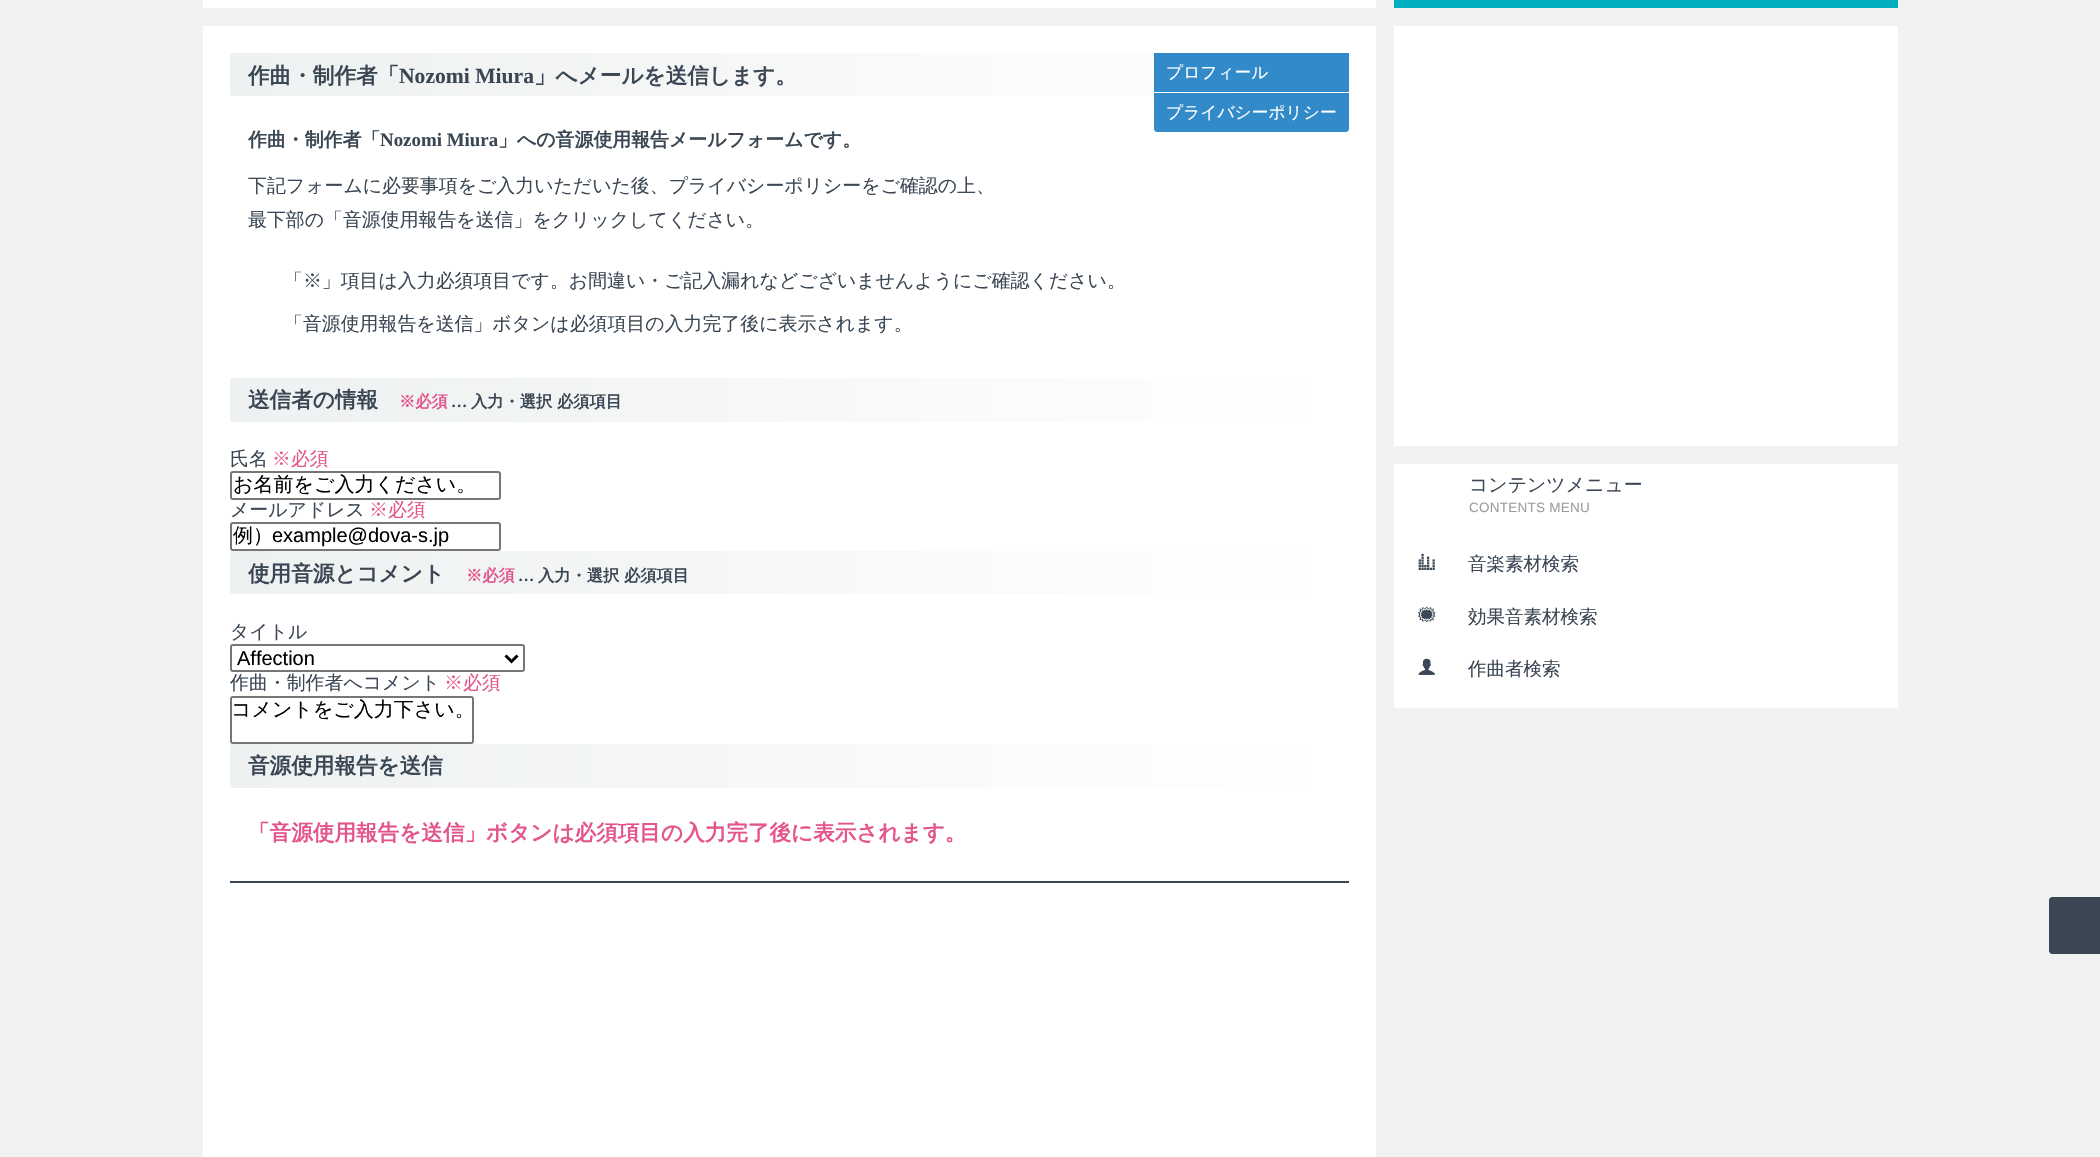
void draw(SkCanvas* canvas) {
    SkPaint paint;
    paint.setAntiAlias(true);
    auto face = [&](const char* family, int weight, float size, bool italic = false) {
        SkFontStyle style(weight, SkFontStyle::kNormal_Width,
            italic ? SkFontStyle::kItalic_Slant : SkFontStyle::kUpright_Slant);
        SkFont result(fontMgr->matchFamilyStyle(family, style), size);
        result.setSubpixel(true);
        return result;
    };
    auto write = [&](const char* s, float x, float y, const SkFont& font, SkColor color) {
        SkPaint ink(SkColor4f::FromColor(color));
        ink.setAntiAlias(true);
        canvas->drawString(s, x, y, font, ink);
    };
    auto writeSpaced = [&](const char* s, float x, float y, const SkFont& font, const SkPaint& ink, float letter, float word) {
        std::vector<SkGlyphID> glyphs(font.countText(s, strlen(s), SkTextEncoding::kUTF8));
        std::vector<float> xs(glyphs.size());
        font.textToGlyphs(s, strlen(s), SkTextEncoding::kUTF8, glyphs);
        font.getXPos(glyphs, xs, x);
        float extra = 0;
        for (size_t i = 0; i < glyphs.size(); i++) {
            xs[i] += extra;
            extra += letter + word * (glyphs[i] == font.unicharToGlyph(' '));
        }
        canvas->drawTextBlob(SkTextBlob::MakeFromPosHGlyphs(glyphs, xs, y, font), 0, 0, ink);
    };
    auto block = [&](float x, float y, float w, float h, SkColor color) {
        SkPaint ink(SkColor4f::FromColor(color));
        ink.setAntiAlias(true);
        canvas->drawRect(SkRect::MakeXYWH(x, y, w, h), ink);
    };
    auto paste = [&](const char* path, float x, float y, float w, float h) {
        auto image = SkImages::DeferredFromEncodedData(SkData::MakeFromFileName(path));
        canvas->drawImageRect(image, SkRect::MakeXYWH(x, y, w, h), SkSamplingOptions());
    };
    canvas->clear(SkColorSetRGB(240, 243, 242));
    block(203, 0, 1173, 8, SK_ColorWHITE);
    block(203, 26, 1173, 1131, SK_ColorWHITE);
    {
        const SkColor colors[] = {SkColorSetRGB(238, 241, 241), SK_ColorWHITE};
        const float stops[] = {0, 1};
        const SkPoint ends[] = {{230, 74}, {1349, 74}};
        paint.setShader(SkGradientShader::MakeLinear(ends, colors, stops, 2, SkTileMode::kClamp));
        paint.setAlpha(255);
    }
    canvas->drawRoundRect(SkRect::MakeXYWH(230, 53, 1119, 43), 3, 3, paint);
    auto kFont1 = face("WenQuanYi Zen Hei", 700, 21.6f);
    write("作曲・制作者「", 248, 83, kFont1, SkColorSetRGB(59, 71, 84));
    auto kFont2 = face("Liberation Serif", 700, 21.6f);
    write("Nozomi Miura", 399, 83, kFont2, SkColorSetRGB(59, 71, 84));
    write("」へメールを送信します。", 534, 83, kFont1, SkColorSetRGB(59, 71, 84));
    block(1154, 53, 195, 39, SkColorSetRGB(50, 138, 201));
    block(1154, 92, 30, 1, SK_ColorWHITE);
    auto kFont3 = face("WenQuanYi Zen Hei", 500, 16.75f);
    write("プロフィール", 1166, 78, kFont3, SK_ColorWHITE);
    paint.setShader(nullptr);
    paint.setColor(SkColorSetRGB(50, 138, 201));
    canvas->drawPath(SkPathBuilder().moveTo(1154, 93).lineTo(1349, 93).lineTo(1349, 129).cubicTo(1349, 130.5f, 1347.5f, 132, 1346, 132).lineTo(1157, 132).cubicTo(1155.5f, 132, 1154, 130.5f, 1154, 129).close().detach(), paint);
    write("プライバシーポリシー", 1166, 118, kFont3, SK_ColorWHITE);
    auto kFont4 = face("WenQuanYi Zen Hei", 700, 18.9f);
    write("作曲・制作者「", 248, 146, kFont4, SkColorSetRGB(59, 71, 84));
    auto kFont5 = face("Liberation Serif", 700, 18.9f);
    write("Nozomi Miura", 380, 146, kFont5, SkColorSetRGB(59, 71, 84));
    write("」への音源使用報告メールフォームです。", 498, 146, kFont4, SkColorSetRGB(59, 71, 84));
    auto kFont6 = face("WenQuanYi Zen Hei", 500, 18.9f);
    write("下記フォームに必要事項をご入力いただいた後、プライバシーポリシーをご確認の上、", 248, 192, kFont6, SkColorSetRGB(59, 71, 84));
    write("最下部の「音源使用報告を送信」をクリックしてください。", 248, 226, kFont6, SkColorSetRGB(59, 71, 84));
    write("「※」項目は入力必須項目です。お間違い・ご記入漏れなどございませんようにご確認ください。", 284, 287, kFont6, SkColorSetRGB(59, 71, 84));
    write("「音源使用報告を送信」ボタンは必須項目の入力完了後に表示されます。", 284, 330, kFont6, SkColorSetRGB(59, 71, 84));
    {
        const SkColor colors[] = {SkColorSetRGB(238, 241, 241), SK_ColorWHITE};
        const float stops[] = {0, 1};
        const SkPoint ends[] = {{230, 400}, {1349, 400}};
        paint.setShader(SkGradientShader::MakeLinear(ends, colors, stops, 2, SkTileMode::kClamp));
        paint.setAlpha(255);
    }
    canvas->drawRoundRect(SkRect::MakeXYWH(230, 378, 1119, 44), 3, 3, paint);
    write("送信者の情報", 248, 407, kFont1, SkColorSetRGB(59, 71, 84));
    auto kFont7 = face("WenQuanYi Zen Hei", 700, 16.25f);
    write("※必須", 399, 407, kFont7, SkColorSetRGB(227, 85, 139));
    auto kFont8 = face("Liberation Serif", 700, 16.25f);
    write("…", 451, 407, kFont8, SkColorSetRGB(59, 71, 84));
    write("入力・選択 必須項目", 471, 407, kFont7, SkColorSetRGB(59, 71, 84));
    write("氏名", 230, 465, kFont6, SkColorSetRGB(59, 71, 84));
    write("※必須", 272, 465, kFont6, SkColorSetRGB(227, 85, 139));
    paint.setStyle(SkPaint::kStroke_Style);
    paint.setStrokeWidth(2);
    paint.setShader(nullptr);
    paint.setColor(SkColorSetRGB(118, 118, 118));
    canvas->drawRoundRect(SkRect::MakeXYWH(231, 472, 269, 27), 2, 2, paint);
    auto kFont9 = face("WenQuanYi Zen Hei", 500, 20);
    write("お名前をご入力ください。", 233, 491, kFont9, SK_ColorBLACK);
    write("メールアドレス", 230, 516, kFont6, SkColorSetRGB(59, 71, 84));
    write("※必須", 369, 516, kFont6, SkColorSetRGB(227, 85, 139));
    canvas->drawRoundRect(SkRect::MakeXYWH(231, 523, 269, 27), 2, 2, paint);
    write("例）", 233, 542, kFont9, SK_ColorBLACK);
    auto kFont10 = face("Liberation Sans", 400, 20);
    write("example@dova-s.jp", 272, 542, kFont10, SK_ColorBLACK);
    paint.setStyle(SkPaint::kFill_Style);
    {
        const SkColor colors[] = {SkColorSetRGB(238, 241, 241), SK_ColorWHITE};
        const float stops[] = {0, 1};
        const SkPoint ends[] = {{230, 572}, {1349, 572}};
        paint.setShader(SkGradientShader::MakeLinear(ends, colors, stops, 2, SkTileMode::kClamp));
        paint.setAlpha(255);
    }
    canvas->drawRoundRect(SkRect::MakeXYWH(230, 551, 1119, 43), 3, 3, paint);
    write("使用音源とコメント", 248, 581, kFont1, SkColorSetRGB(59, 71, 84));
    write("※必須", 466, 581, kFont7, SkColorSetRGB(227, 85, 139));
    write("…", 518, 581, kFont8, SkColorSetRGB(59, 71, 84));
    write("入力・選択 必須項目", 538, 581, kFont7, SkColorSetRGB(59, 71, 84));
    write("タイトル", 230, 638, kFont6, SkColorSetRGB(59, 71, 84));
    paint.setStyle(SkPaint::kStroke_Style);
    paint.setShader(nullptr);
    paint.setColor(SkColorSetRGB(118, 118, 118));
    canvas->drawRoundRect(SkRect::MakeXYWH(231, 645, 293, 26), 2, 2, paint);
    paint.setStrokeWidth(3);
    paint.setColor(SK_ColorBLACK);
    canvas->drawPath(SkPathBuilder().moveTo(505.5f, 655.5f).lineTo(511.5f, 661.5f).lineTo(517.5f, 655.5f).detach(), paint);
    write("Affection", 237, 665, kFont10, SK_ColorBLACK);
    write("作曲・制作者へコメント", 230, 689, kFont6, SkColorSetRGB(59, 71, 84));
    write("※必須", 444, 689, kFont6, SkColorSetRGB(227, 85, 139));
    paint.setStrokeWidth(2);
    paint.setColor(SkColorSetRGB(118, 118, 118));
    canvas->drawRoundRect(SkRect::MakeXYWH(231, 697, 242, 46), 2, 2, paint);
    write("コメントをご入力下さい。", 231, 716, kFont9, SK_ColorBLACK);
    paint.setStyle(SkPaint::kFill_Style);
    {
        const SkColor colors[] = {SkColorSetRGB(238, 241, 241), SK_ColorWHITE};
        const float stops[] = {0, 1};
        const SkPoint ends[] = {{230, 766}, {1349, 766}};
        paint.setShader(SkGradientShader::MakeLinear(ends, colors, stops, 2, SkTileMode::kClamp));
        paint.setAlpha(255);
    }
    canvas->drawRoundRect(SkRect::MakeXYWH(230, 744, 1119, 44), 3, 3, paint);
    write("音源使用報告を送信", 248, 773, kFont1, SkColorSetRGB(59, 71, 84));
    write("「音源使用報告を送信」ボタンは必須項目の入力完了後に表示されます。", 248, 840, kFont1, SkColorSetRGB(227, 85, 139));
    block(230, 881, 1119, 2, SkColorSetRGB(59, 71, 84));
    block(1394, 0, 504, 8, SkColorSetRGB(0, 176, 193));
    block(1394, 26, 504, 420, SK_ColorWHITE);
    block(1394, 464, 504, 244, SK_ColorWHITE);
    write("コンテンツメニュー", 1469, 491, kFont6, SkColorSetRGB(59, 71, 84));
    auto kFont11 = face("Liberation Sans", 400, 13.5f);
    paint.setShader(nullptr);
    paint.setColor(SkColorSetRGB(156, 157, 157));
    writeSpaced("CONTENTS MENU", 1469, 512, kFont11, paint, 0.25f, 0);
    paste("pic1.png", 1418, 553, 17, 17);
    auto kFont12 = face("WenQuanYi Zen Hei", 500, 18.5f);
    write("音楽素材検索", 1468, 570, kFont12, SkColorSetRGB(59, 71, 84));
    paste("pic2.png", 1418, 606, 18, 17);
    write("効果音素材検索", 1468, 623, kFont12, SkColorSetRGB(59, 71, 84));
    paste("pic3.png", 1418, 658, 17, 17);
    write("作曲者検索", 1468, 675, kFont12, SkColorSetRGB(59, 71, 84));
    paint.setColor(SkColorSetRGB(59, 71, 84));
    canvas->drawPath(SkPathBuilder().moveTo(2052, 897).lineTo(2100, 897).lineTo(2100, 954).lineTo(2052, 954).cubicTo(2050.5f, 954, 2049, 952.5f, 2049, 951).lineTo(2049, 900).cubicTo(2049, 898.5f, 2050.5f, 897, 2052, 897).close().detach(), paint);
}
